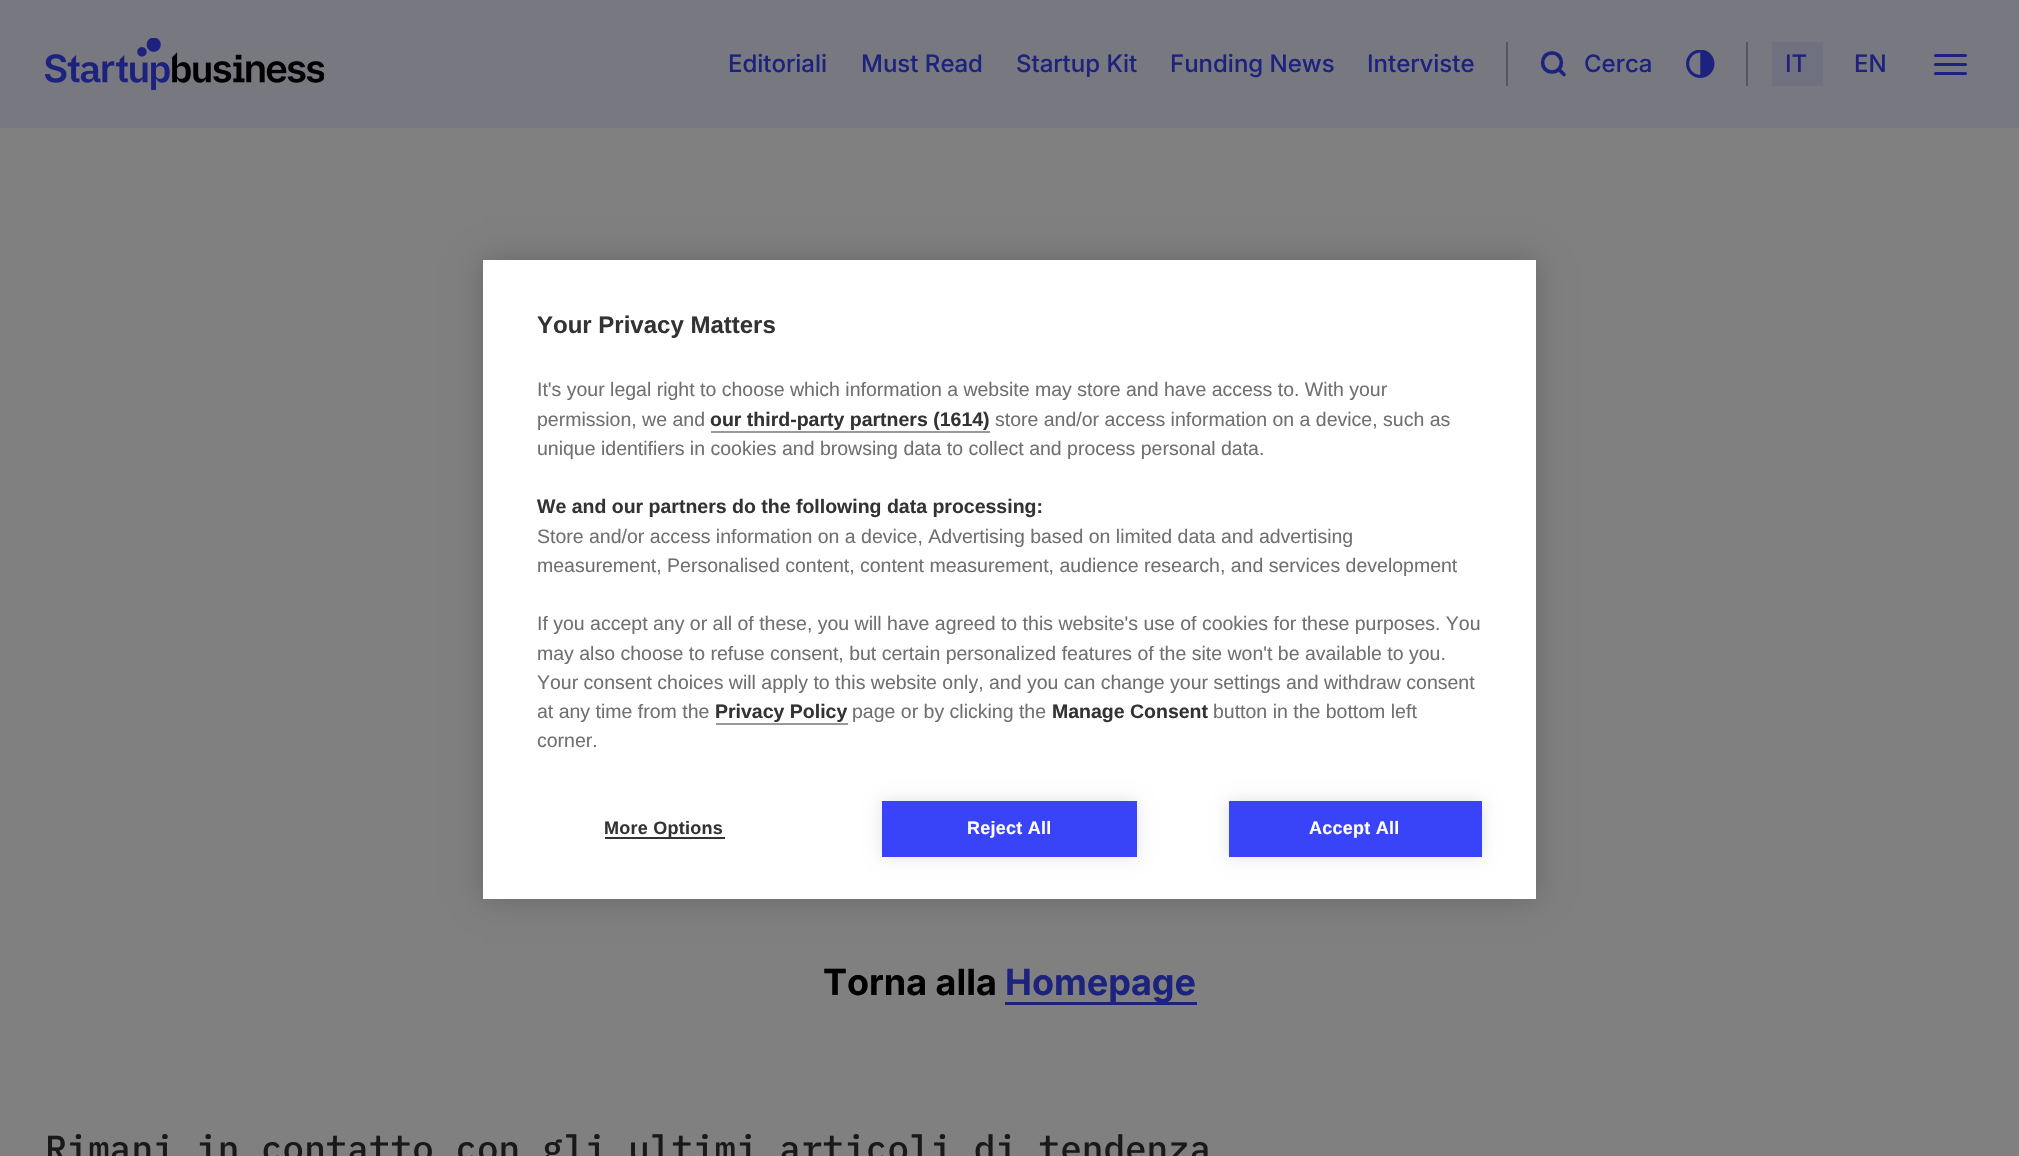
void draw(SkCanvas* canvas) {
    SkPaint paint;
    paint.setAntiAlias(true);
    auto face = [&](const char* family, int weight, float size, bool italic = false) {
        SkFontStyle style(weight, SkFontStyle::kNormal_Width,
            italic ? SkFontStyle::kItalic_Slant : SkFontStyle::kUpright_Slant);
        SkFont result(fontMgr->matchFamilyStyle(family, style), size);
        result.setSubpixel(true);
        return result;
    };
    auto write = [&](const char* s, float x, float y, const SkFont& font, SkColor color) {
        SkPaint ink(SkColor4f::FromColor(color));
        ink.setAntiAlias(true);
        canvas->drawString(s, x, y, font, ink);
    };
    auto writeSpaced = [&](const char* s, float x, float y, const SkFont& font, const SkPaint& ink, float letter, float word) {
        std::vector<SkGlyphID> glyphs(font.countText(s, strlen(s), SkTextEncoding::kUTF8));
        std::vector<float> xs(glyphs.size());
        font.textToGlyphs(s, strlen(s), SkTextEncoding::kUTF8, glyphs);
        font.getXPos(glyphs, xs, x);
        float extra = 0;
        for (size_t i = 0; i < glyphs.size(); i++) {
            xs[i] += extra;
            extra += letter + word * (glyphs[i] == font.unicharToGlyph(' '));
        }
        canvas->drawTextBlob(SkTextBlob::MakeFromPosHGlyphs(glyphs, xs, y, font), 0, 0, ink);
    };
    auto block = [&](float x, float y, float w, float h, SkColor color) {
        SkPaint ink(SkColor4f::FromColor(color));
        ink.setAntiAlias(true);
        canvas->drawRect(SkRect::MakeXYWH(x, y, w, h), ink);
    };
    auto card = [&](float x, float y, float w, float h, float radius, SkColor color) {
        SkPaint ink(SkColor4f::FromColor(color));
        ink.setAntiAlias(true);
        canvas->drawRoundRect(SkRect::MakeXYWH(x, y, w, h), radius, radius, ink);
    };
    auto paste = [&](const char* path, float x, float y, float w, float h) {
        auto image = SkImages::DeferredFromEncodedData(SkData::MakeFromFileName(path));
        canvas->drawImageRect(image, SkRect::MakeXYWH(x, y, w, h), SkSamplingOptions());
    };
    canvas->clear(SkColorSetRGB(128, 128, 128));
    block(0, 0, 2019, 128, SkColorSetRGB(120, 120, 128));
    paste("pic1.png", 45, 38, 279, 52);
    auto kFont1 = face("Inter", 500, 24);
    write("Editoriali", 728, 72, kFont1, SkColorSetRGB(29, 34, 125));
    write("Must Read", 861, 72, kFont1, SkColorSetRGB(29, 34, 125));
    write("Startup Kit", 1016, 72, kFont1, SkColorSetRGB(29, 34, 125));
    write("Funding News", 1170, 72, kFont1, SkColorSetRGB(29, 34, 125));
    write("Interviste", 1367, 72, kFont1, SkColorSetRGB(29, 34, 125));
    block(1506, 42, 2, 44, SkColorSetRGB(87, 86, 89));
    paint.setStyle(SkPaint::kStroke_Style);
    paint.setStrokeWidth(3.6f);
    paint.setStrokeCap(SkPaint::kRound_Cap);
    paint.setStrokeJoin(SkPaint::kRound_Join);
    paint.setColor(SkColorSetRGB(29, 34, 125));
    canvas->drawPath(SkPathBuilder().moveTo(1552, 72).cubicTo(1564.5f, 72, 1564.5f, 53, 1552, 53).cubicTo(1539.5f, 53, 1539.5f, 72, 1552, 72).close().moveTo(1564, 74.5f).lineTo(1559, 69.5f).detach(), paint);
    write("Cerca", 1584, 72, kFont1, SkColorSetRGB(29, 34, 125));
    paste("pic2.png", 1686, 50, 29, 28);
    block(1746, 42, 2, 44, SkColorSetRGB(87, 86, 89));
    block(1772, 42, 51, 44, SkColorSetRGB(111, 112, 128));
    write("IT", 1785, 72, kFont1, SkColorSetRGB(29, 34, 125));
    write("EN", 1854, 72, kFont1, SkColorSetRGB(29, 34, 125));
    card(1934, 54, 33, 3, 1.5f, SkColorSetRGB(29, 34, 125));
    card(1934, 63, 33, 3, 1.5f, SkColorSetRGB(29, 34, 125));
    card(1934, 72, 33, 3, 1.5f, SkColorSetRGB(29, 34, 125));
    paint.setStyle(SkPaint::kFill_Style);
    paint.setColor(SkColorSetARGB(51, 0, 0, 0));
    paint.setMaskFilter(SkMaskFilter::MakeBlur(kNormal_SkBlurStyle, 15));
    canvas->drawRect(SkRect::MakeXYWH(483, 260, 1053, 639), paint);
    paint.setMaskFilter(nullptr);
    block(483, 260, 1053, 639, SK_ColorWHITE);
    auto kFont2 = face("Liberation Sans", 700, 24);
    write("Your Privacy Matters", 537, 333, kFont2, SkColorSetRGB(51, 51, 51));
    auto kFont3 = face("Liberation Sans", 400, 19.5f);
    write("It's your legal right to choose which information a website may store and have access to. With your", 537, 396, kFont3, SkColorSetRGB(112, 112, 112));
    write("permission, we and", 537, 426, kFont3, SkColorSetRGB(112, 112, 112));
    auto kFont4 = face("Liberation Sans", 700, 19.5f);
    write("our third-party partners (1614)", 710, 426, kFont4, SkColorSetRGB(51, 51, 51));
    block(711, 431, 279, 2, SkColorSetRGB(153, 153, 153));
    write("store and/or access information on a device, such as", 995, 426, kFont3, SkColorSetRGB(112, 112, 112));
    write("unique identifiers in cookies and browsing data to collect and process personal data.", 537, 455, kFont3, SkColorSetRGB(112, 112, 112));
    write("We and our partners do the following data processing:", 537, 513, kFont4, SkColorSetRGB(51, 51, 51));
    write("Store and/or access information on a device, Advertising based on limited data and advertising", 537, 543, kFont3, SkColorSetRGB(112, 112, 112));
    write("measurement, Personalised content, content measurement, audience research, and services development", 537, 572, kFont3, SkColorSetRGB(112, 112, 112));
    write("If you accept any or all of these, you will have agreed to this website's use of cookies for these purposes. You", 537, 630, kFont3, SkColorSetRGB(112, 112, 112));
    write("may also choose to refuse consent, but certain personalized features of the site won't be available to you.", 537, 660, kFont3, SkColorSetRGB(112, 112, 112));
    write("Your consent choices will apply to this website only, and you can change your settings and withdraw consent", 537, 689, kFont3, SkColorSetRGB(112, 112, 112));
    write("at any time from the", 537, 718, kFont3, SkColorSetRGB(112, 112, 112));
    write("Privacy Policy", 715, 718, kFont4, SkColorSetRGB(51, 51, 51));
    block(716, 723, 132, 2, SkColorSetRGB(153, 153, 153));
    write("page or by clicking the", 852, 718, kFont3, SkColorSetRGB(112, 112, 112));
    write("Manage Consent", 1052, 718, kFont4, SkColorSetRGB(51, 51, 51));
    write("button in the bottom left", 1213, 718, kFont3, SkColorSetRGB(112, 112, 112));
    write("corner.", 537, 747, kFont3, SkColorSetRGB(112, 112, 112));
    block(605, 837, 120, 2, SkColorSetRGB(51, 51, 51));
    auto kFont5 = face("Liberation Sans", 700, 18);
    paint.setColor(SkColorSetRGB(51, 51, 51));
    writeSpaced("More Options", 604, 834, kFont5, paint, 0.25f, 0);
    paint.setColor(SkColorSetARGB(31, 0, 0, 0));
    paint.setMaskFilter(SkMaskFilter::MakeBlur(kNormal_SkBlurStyle, 7.5f));
    canvas->drawRect(SkRect::MakeXYWH(882, 801, 255, 56), paint);
    paint.setMaskFilter(nullptr);
    block(882, 801, 255, 56, SkColorSetRGB(57, 68, 249));
    paint.setColor(SK_ColorWHITE);
    writeSpaced("Reject All", 967, 834, kFont5, paint, 0.25f, 0);
    paint.setColor(SkColorSetARGB(31, 0, 0, 0));
    paint.setMaskFilter(SkMaskFilter::MakeBlur(kNormal_SkBlurStyle, 7.5f));
    canvas->drawRect(SkRect::MakeXYWH(1229, 801, 253, 56), paint);
    paint.setMaskFilter(nullptr);
    block(1229, 801, 253, 56, SkColorSetRGB(57, 68, 249));
    paint.setColor(SK_ColorWHITE);
    writeSpaced("Accept All", 1309, 834, kFont5, paint, 0.25f, 0);
    auto kFont6 = face("Inter", 700, 36);
    write("Torna alla", 823, 995, kFont6, SK_ColorBLACK);
    block(1005, 1002, 192, 3, SkColorSetRGB(29, 34, 125));
    write("Homepage", 1005, 995, kFont6, SkColorSetRGB(29, 34, 125));
    auto kFont7 = face("IBM Plex Mono", 500, 36);
    write("Rimani in contatto con gli ultimi articoli di tendenza", 45, 1161, kFont7, SkColorSetRGB(25, 25, 25));
}
